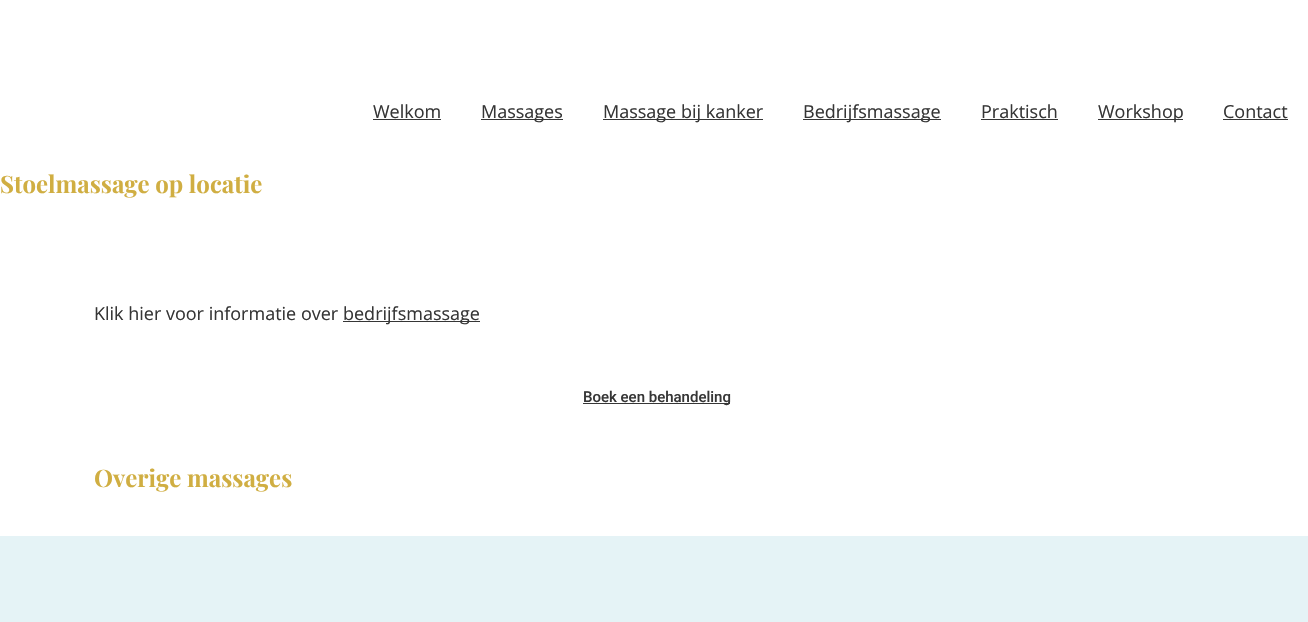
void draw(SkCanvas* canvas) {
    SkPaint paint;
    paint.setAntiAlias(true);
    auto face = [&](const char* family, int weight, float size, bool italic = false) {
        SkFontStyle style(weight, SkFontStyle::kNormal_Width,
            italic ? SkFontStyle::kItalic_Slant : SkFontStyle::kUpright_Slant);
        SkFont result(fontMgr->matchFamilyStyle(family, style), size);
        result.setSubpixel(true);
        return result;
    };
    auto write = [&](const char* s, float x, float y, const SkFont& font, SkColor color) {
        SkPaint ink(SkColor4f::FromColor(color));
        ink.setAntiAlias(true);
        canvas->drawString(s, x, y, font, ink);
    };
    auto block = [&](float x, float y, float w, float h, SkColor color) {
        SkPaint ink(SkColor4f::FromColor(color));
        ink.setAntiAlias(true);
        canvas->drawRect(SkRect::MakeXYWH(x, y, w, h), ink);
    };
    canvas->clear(SK_ColorWHITE);
    auto kFont1 = face("Open Sans", 400, 18);
    write("Welkom", 373, 118, kFont1, SkColorSetRGB(54, 54, 54));
    block(373, 119, 68, 1, SkColorSetRGB(54, 54, 54));
    block(481, 119, 82, 1, SkColorSetRGB(54, 54, 54));
    write("Massages", 481, 118, kFont1, SkColorSetRGB(54, 54, 54));
    block(603, 119, 160, 1, SkColorSetRGB(54, 54, 54));
    write("Massage bij kanker", 603, 118, kFont1, SkColorSetRGB(54, 54, 54));
    block(803, 119, 138, 1, SkColorSetRGB(54, 54, 54));
    write("Bedrijfsmassage", 803, 118, kFont1, SkColorSetRGB(54, 54, 54));
    write("Praktisch", 981, 118, kFont1, SkColorSetRGB(54, 54, 54));
    block(981, 119, 77, 1, SkColorSetRGB(54, 54, 54));
    block(1098, 119, 85, 1, SkColorSetRGB(54, 54, 54));
    write("Workshop", 1098, 118, kFont1, SkColorSetRGB(54, 54, 54));
    write("Contact", 1223, 118, kFont1, SkColorSetRGB(54, 54, 54));
    block(1223, 119, 65, 1, SkColorSetRGB(54, 54, 54));
    auto kFont2 = face("Playfair Display", 700, 24);
    write("Stoelmassage op locatie", 0, 193, kFont2, SkColorSetRGB(208, 174, 66));
    write("Klik hier voor informatie over", 94, 320, kFont1, SkColorSetRGB(54, 54, 54));
    block(343, 321, 137, 1, SkColorSetRGB(54, 54, 54));
    write("bedrijfsmassage", 343, 320, kFont1, SkColorSetRGB(54, 54, 54));
    block(583, 403, 147, 1, SkColorSetRGB(54, 54, 54));
    auto kFont3 = face("Roboto", 500, 15);
    write("Boek een behandeling", 583, 402, kFont3, SkColorSetRGB(54, 54, 54));
    write("Overige massages", 94, 487, kFont2, SkColorSetRGB(208, 174, 66));
    block(0, 536, 1308, 86, SkColorSetRGB(229, 243, 246));
}
